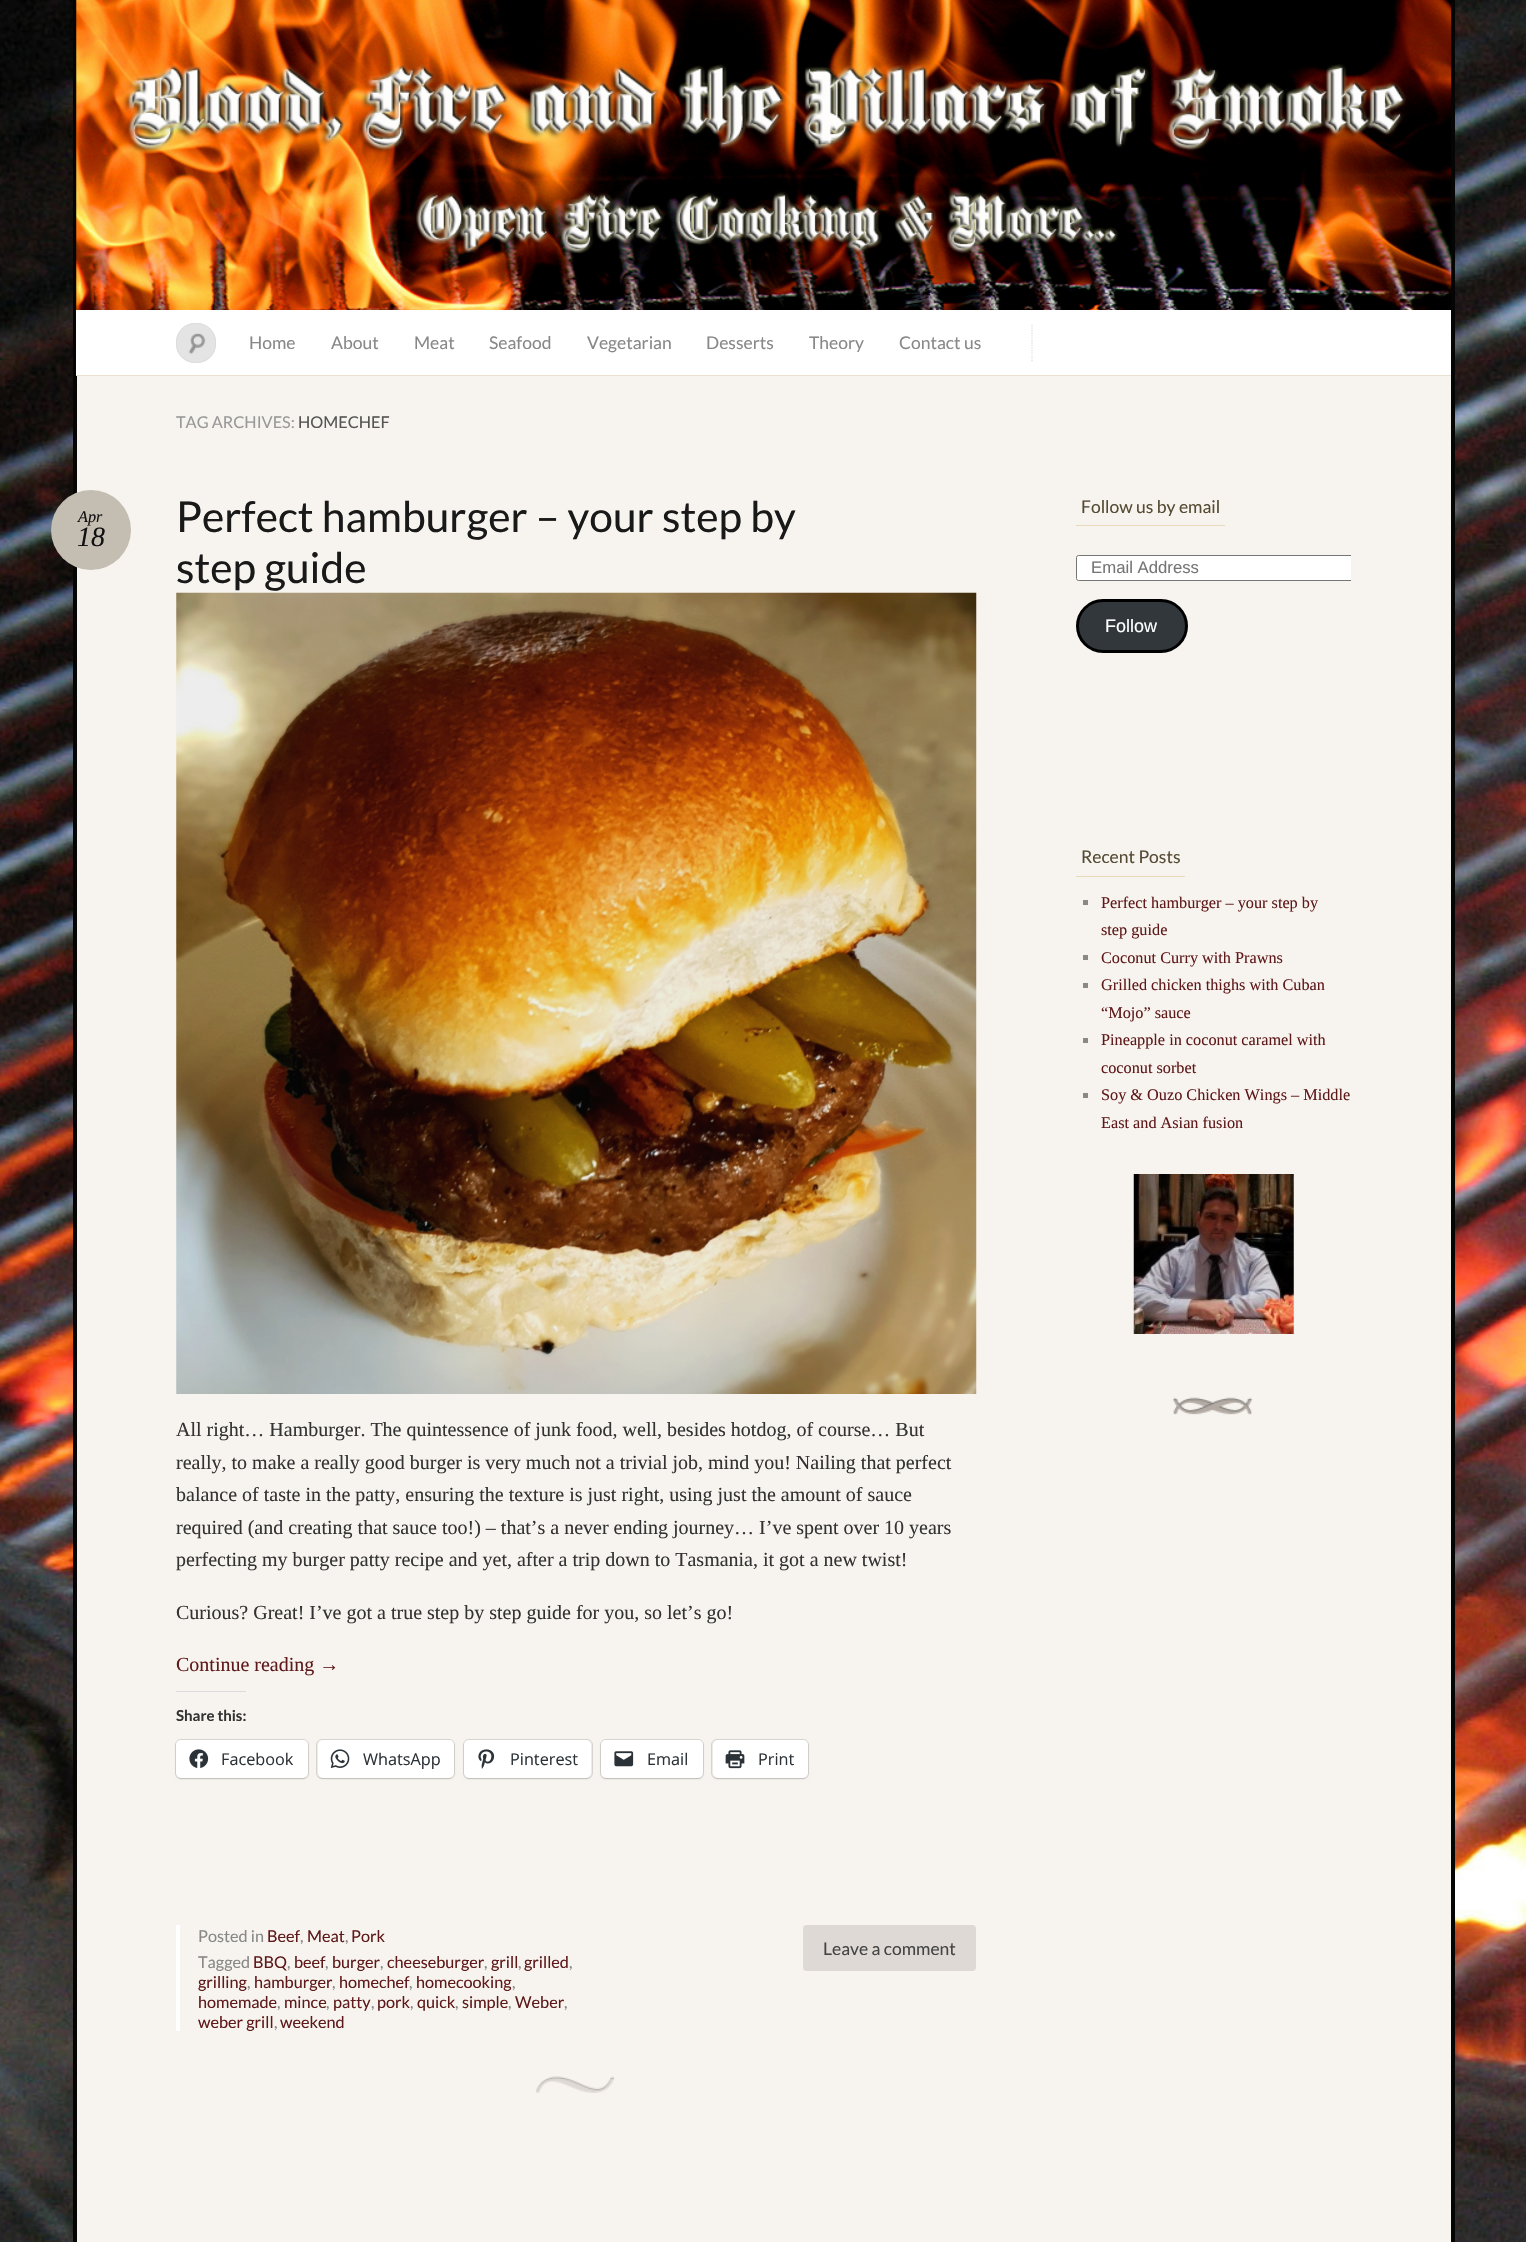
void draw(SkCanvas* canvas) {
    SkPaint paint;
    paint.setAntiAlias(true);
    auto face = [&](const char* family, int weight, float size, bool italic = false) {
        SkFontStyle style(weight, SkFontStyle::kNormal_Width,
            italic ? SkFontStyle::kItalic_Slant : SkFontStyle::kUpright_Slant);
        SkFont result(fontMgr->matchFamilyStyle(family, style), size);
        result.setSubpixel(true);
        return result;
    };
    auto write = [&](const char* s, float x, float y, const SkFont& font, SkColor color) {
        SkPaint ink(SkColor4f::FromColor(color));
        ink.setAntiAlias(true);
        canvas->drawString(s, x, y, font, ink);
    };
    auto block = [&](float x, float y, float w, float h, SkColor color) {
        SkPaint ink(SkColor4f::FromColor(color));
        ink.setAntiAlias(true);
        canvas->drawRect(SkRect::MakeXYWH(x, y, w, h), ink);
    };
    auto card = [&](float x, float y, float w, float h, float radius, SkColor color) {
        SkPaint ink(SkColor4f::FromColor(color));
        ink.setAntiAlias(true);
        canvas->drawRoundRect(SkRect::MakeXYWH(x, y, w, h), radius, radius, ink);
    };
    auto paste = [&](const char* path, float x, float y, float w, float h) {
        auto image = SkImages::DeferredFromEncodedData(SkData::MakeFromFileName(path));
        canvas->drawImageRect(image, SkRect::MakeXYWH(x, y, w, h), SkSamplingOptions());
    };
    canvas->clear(SK_ColorWHITE);
    paste("pic1.png", 0, 0, 1526, 2242);
    block(77, 376, 1374, 1866, SkColorSetRGB(247, 243, 238));
    paint.setStyle(SkPaint::kStroke_Style);
    paint.setStrokeWidth(4);
    paint.setColor(SkColorSetRGB(5, 5, 5));
    canvas->drawRect(SkRect::MakeXYWH(75, -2, 1378, 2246), paint);
    paste("pic2.png", 76, 0, 1376, 311);
    block(76, 310, 1375, 65, SK_ColorWHITE);
    block(76, 375, 1375, 1, SkColorSetRGB(233, 224, 209));
    card(176, 323, 40, 40, 19, SkColorSetRGB(228, 228, 228));
    paste("pic3.png", 188, 333, 18, 21);
    paint.setStrokeWidth(1);
    paint.setColor(SkColorSetRGB(221, 221, 221));
    canvas->drawRoundRect(SkRect::MakeXYWH(176.5f, 323.5f, 39, 39), 18.5f, 18.5f, paint);
    paint.setStrokeWidth(1.2f);
    paint.setPathEffect(SkDashPathEffect::Make({{1.25f, 1.25f}}, 0));
    canvas->drawPath(SkPathBuilder().moveTo(1032, 325).lineTo(1032, 362.5f).detach(), paint);
    paint.setPathEffect(nullptr);
    auto kFont1 = face("Lato", 400, 17.5f);
    write("Home", 249, 349, kFont1, SkColorSetRGB(136, 136, 136));
    write("About", 331, 349, kFont1, SkColorSetRGB(136, 136, 136));
    write("Meat", 414, 349, kFont1, SkColorSetRGB(136, 136, 136));
    write("Seafood", 489, 349, kFont1, SkColorSetRGB(136, 136, 136));
    write("Vegetarian", 587, 349, kFont1, SkColorSetRGB(136, 136, 136));
    write("Desserts", 706, 349, kFont1, SkColorSetRGB(136, 136, 136));
    write("Theory", 809, 349, kFont1, SkColorSetRGB(136, 136, 136));
    write("Contact us", 899, 349, kFont1, SkColorSetRGB(136, 136, 136));
    auto kFont2 = face("Lato", 400, 16.25f);
    write("TAG ARCHIVES:", 176, 428, kFont2, SkColorSetRGB(153, 153, 153));
    write("HOMECHEF", 298, 428, kFont2, SkColorSetRGB(85, 85, 85));
    paste("pic4.png", 536, 2076, 79, 17);
    paint.setStyle(SkPaint::kFill_Style);
    paint.setColor(SkColorSetRGB(196, 189, 178));
    canvas->drawCircle(91, 530, 40, paint);
    auto kFont3 = face("Liberation Serif", 400, 16.25f, true);
    write("Apr", 78, 522, kFont3, SkColorSetRGB(17, 17, 17));
    auto kFont4 = face("Liberation Serif", 400, 28, true);
    write("18", 77, 546, kFont4, SkColorSetRGB(17, 17, 17));
    auto kFont5 = face("Lato", 400, 42.5f);
    write("Perfect hamburger – your step by", 176, 532, kFont5, SkColorSetRGB(25, 25, 25));
    write("step guide", 176, 583, kFont5, SkColorSetRGB(25, 25, 25));
    paste("pic5.png", 176, 592, 801, 802);
    auto kFont6 = face("Liberation Serif", 400, 20);
    write("All right… Hamburger. The quintessence of junk food, well, besides hotdog, of course… But", 176, 1436, kFont6, SkColorSetRGB(51, 51, 51));
    write("really, to make a really good burger is very much not a trivial job, mind you! Nailing that perfect", 176, 1469, kFont6, SkColorSetRGB(51, 51, 51));
    write("balance of taste in the patty, ensuring the texture is just right, using just the amount of sauce", 176, 1501, kFont6, SkColorSetRGB(51, 51, 51));
    write("required (and creating that sauce too!) – that’s a never ending journey… I’ve spent over 10 years", 176, 1534, kFont6, SkColorSetRGB(51, 51, 51));
    write("perfecting my burger patty recipe and yet, after a trip down to Tasmania, it got a new twist!", 176, 1566, kFont6, SkColorSetRGB(51, 51, 51));
    write("Curious? Great! I’ve got a true step by step guide for you, so let’s go!", 176, 1619, kFont6, SkColorSetRGB(51, 51, 51));
    write("Continue reading →", 176, 1671, kFont6, SkColorSetRGB(94, 25, 26));
    block(176, 1691, 70, 1, SkColorSetRGB(220, 220, 222));
    auto kFont7 = face("Lato", 700, 15);
    write("Share this:", 176, 1721, kFont7, SkColorSetRGB(51, 51, 51));
    paint.setStyle(SkPaint::kStroke_Style);
    paint.setStrokeWidth(1);
    paint.setColor(SkColorSetRGB(217, 214, 209));
    canvas->drawRoundRect(SkRect::MakeXYWH(175.5f, 1739.5f, 133, 39), 5.5f, 5.5f, paint);
    paint.setStyle(SkPaint::kFill_Style);
    paint.setColor(SkColorSetARGB(31, 0, 0, 0));
    paint.setMaskFilter(SkMaskFilter::MakeBlur(kNormal_SkBlurStyle, 1));
    canvas->drawRoundRect(SkRect::MakeXYWH(176, 1741, 132, 38), 5, 5, paint);
    paint.setMaskFilter(nullptr);
    card(176, 1740, 132, 38, 5, SK_ColorWHITE);
    paste("pic6.png", 189, 1749, 20, 19);
    auto kFont8 = face("Open Sans", 400, 16.25f);
    write("Facebook", 221, 1765, kFont8, SkColorSetRGB(44, 51, 56));
    paint.setStyle(SkPaint::kStroke_Style);
    paint.setColor(SkColorSetRGB(217, 214, 209));
    canvas->drawRoundRect(SkRect::MakeXYWH(316.5f, 1739.5f, 138, 39), 5.5f, 5.5f, paint);
    paint.setStyle(SkPaint::kFill_Style);
    paint.setColor(SkColorSetARGB(31, 0, 0, 0));
    paint.setMaskFilter(SkMaskFilter::MakeBlur(kNormal_SkBlurStyle, 1));
    canvas->drawRoundRect(SkRect::MakeXYWH(318, 1741, 136, 38), 5, 5, paint);
    paint.setMaskFilter(nullptr);
    card(318, 1740, 136, 38, 5, SK_ColorWHITE);
    paste("pic7.png", 330, 1749, 20, 19);
    write("WhatsApp", 363, 1765, kFont8, SkColorSetRGB(44, 51, 56));
    paint.setStyle(SkPaint::kStroke_Style);
    paint.setColor(SkColorSetRGB(217, 214, 209));
    canvas->drawRoundRect(SkRect::MakeXYWH(463.5f, 1739.5f, 129, 39), 5.5f, 5.5f, paint);
    paint.setStyle(SkPaint::kFill_Style);
    paint.setColor(SkColorSetARGB(31, 0, 0, 0));
    paint.setMaskFilter(SkMaskFilter::MakeBlur(kNormal_SkBlurStyle, 1));
    canvas->drawRoundRect(SkRect::MakeXYWH(464, 1741, 127, 38), 5, 5, paint);
    paint.setMaskFilter(nullptr);
    card(464, 1740, 127, 38, 5, SK_ColorWHITE);
    paste("pic8.png", 478, 1749, 17, 20);
    write("Pinterest", 510, 1765, kFont8, SkColorSetRGB(44, 51, 56));
    paint.setStyle(SkPaint::kStroke_Style);
    paint.setColor(SkColorSetRGB(217, 214, 209));
    canvas->drawRoundRect(SkRect::MakeXYWH(600.5f, 1739.5f, 103, 39), 5.5f, 5.5f, paint);
    paint.setStyle(SkPaint::kFill_Style);
    paint.setColor(SkColorSetARGB(31, 0, 0, 0));
    paint.setMaskFilter(SkMaskFilter::MakeBlur(kNormal_SkBlurStyle, 1));
    canvas->drawRoundRect(SkRect::MakeXYWH(601, 1741, 102, 38), 5, 5, paint);
    paint.setMaskFilter(nullptr);
    card(601, 1740, 102, 38, 5, SK_ColorWHITE);
    paste("pic9.png", 614, 1751, 20, 16);
    write("Email", 647, 1765, kFont8, SkColorSetRGB(44, 51, 56));
    paint.setStyle(SkPaint::kStroke_Style);
    paint.setColor(SkColorSetRGB(217, 214, 209));
    canvas->drawRoundRect(SkRect::MakeXYWH(711.5f, 1739.5f, 97, 39), 5.5f, 5.5f, paint);
    paint.setStyle(SkPaint::kFill_Style);
    paint.setColor(SkColorSetARGB(31, 0, 0, 0));
    paint.setMaskFilter(SkMaskFilter::MakeBlur(kNormal_SkBlurStyle, 1));
    canvas->drawRoundRect(SkRect::MakeXYWH(713, 1741, 95, 38), 5, 5, paint);
    paint.setMaskFilter(nullptr);
    card(713, 1740, 95, 38, 5, SK_ColorWHITE);
    paste("pic10.png", 725, 1750, 20, 19);
    write("Print", 758, 1765, kFont8, SkColorSetRGB(44, 51, 56));
    block(176, 1925, 4, 106, SK_ColorWHITE);
    write("Posted in", 198, 1942, kFont2, SkColorSetRGB(136, 136, 136));
    write("Beef", 267, 1942, kFont2, SkColorSetRGB(94, 25, 26));
    write(",", 300, 1942, kFont2, SkColorSetRGB(136, 136, 136));
    write("Meat", 307, 1942, kFont2, SkColorSetRGB(94, 25, 26));
    write(",", 345, 1942, kFont2, SkColorSetRGB(136, 136, 136));
    write("Pork", 351, 1942, kFont2, SkColorSetRGB(94, 25, 26));
    card(803, 1925, 173, 46, 4, SkColorSetRGB(222, 217, 212));
    write("Leave a comment", 823, 1955, kFont1, SkColorSetRGB(68, 68, 68));
    write("Tagged", 198, 1968, kFont2, SkColorSetRGB(136, 136, 136));
    write("BBQ", 253, 1968, kFont2, SkColorSetRGB(94, 25, 26));
    write(",", 287, 1968, kFont2, SkColorSetRGB(136, 136, 136));
    write("beef", 294, 1968, kFont2, SkColorSetRGB(94, 25, 26));
    write(",", 325, 1968, kFont2, SkColorSetRGB(136, 136, 136));
    write("burger", 332, 1968, kFont2, SkColorSetRGB(94, 25, 26));
    write(",", 380, 1968, kFont2, SkColorSetRGB(136, 136, 136));
    write("cheeseburger", 387, 1968, kFont2, SkColorSetRGB(94, 25, 26));
    write(",", 484, 1968, kFont2, SkColorSetRGB(136, 136, 136));
    write("grill", 491, 1968, kFont2, SkColorSetRGB(94, 25, 26));
    write(",", 518, 1968, kFont2, SkColorSetRGB(136, 136, 136));
    write("grilled", 524, 1968, kFont2, SkColorSetRGB(94, 25, 26));
    write(",", 569, 1968, kFont2, SkColorSetRGB(136, 136, 136));
    write("grilling", 198, 1988, kFont2, SkColorSetRGB(94, 25, 26));
    write(",", 247, 1988, kFont2, SkColorSetRGB(136, 136, 136));
    write("hamburger", 254, 1988, kFont2, SkColorSetRGB(94, 25, 26));
    write(",", 332, 1988, kFont2, SkColorSetRGB(136, 136, 136));
    write("homechef", 339, 1988, kFont2, SkColorSetRGB(94, 25, 26));
    write(",", 409, 1988, kFont2, SkColorSetRGB(136, 136, 136));
    write("homecooking", 416, 1988, kFont2, SkColorSetRGB(94, 25, 26));
    write(",", 512, 1988, kFont2, SkColorSetRGB(136, 136, 136));
    write("homemade", 198, 2008, kFont2, SkColorSetRGB(94, 25, 26));
    write(",", 277, 2008, kFont2, SkColorSetRGB(136, 136, 136));
    write("mince", 284, 2008, kFont2, SkColorSetRGB(94, 25, 26));
    write(",", 326, 2008, kFont2, SkColorSetRGB(136, 136, 136));
    write("patty", 333, 2008, kFont2, SkColorSetRGB(94, 25, 26));
    write(",", 371, 2008, kFont2, SkColorSetRGB(136, 136, 136));
    write("pork", 377, 2008, kFont2, SkColorSetRGB(94, 25, 26));
    write(",", 410, 2008, kFont2, SkColorSetRGB(136, 136, 136));
    write("quick", 417, 2008, kFont2, SkColorSetRGB(94, 25, 26));
    write(",", 455, 2008, kFont2, SkColorSetRGB(136, 136, 136));
    write("simple", 462, 2008, kFont2, SkColorSetRGB(94, 25, 26));
    write(",", 508, 2008, kFont2, SkColorSetRGB(136, 136, 136));
    write("Weber", 515, 2008, kFont2, SkColorSetRGB(94, 25, 26));
    write(",", 564, 2008, kFont2, SkColorSetRGB(136, 136, 136));
    write("weber grill", 198, 2028, kFont2, SkColorSetRGB(94, 25, 26));
    write(",", 274, 2028, kFont2, SkColorSetRGB(136, 136, 136));
    write("weekend", 280, 2028, kFont2, SkColorSetRGB(94, 25, 26));
    paste("pic11.png", 1172, 1397, 81, 18);
    block(1076, 525, 149, 1, SkColorSetRGB(231, 217, 185));
    write("Follow us by email", 1081, 513, kFont1, SkColorSetRGB(85, 75, 52));
    paint.setColor(SK_ColorWHITE);
    canvas->drawPath(SkPathBuilder().moveTo(1078.5f, 555).lineTo(1351, 555).lineTo(1351, 581).lineTo(1078.5f, 581).cubicTo(1077, 581, 1076, 580, 1076, 578.5f).lineTo(1076, 557.5f).cubicTo(1076, 556, 1077, 555, 1078.5f, 555).close().detach(), paint);
    canvas->save();
    canvas->clipRect(SkRect::MakeXYWH(1076, 476, 275, 945));
    paint.setStyle(SkPaint::kStroke_Style);
    paint.setColor(SkColorSetRGB(118, 118, 118));
    canvas->drawRoundRect(SkRect::MakeXYWH(1076.5f, 555.5f, 291, 25), 2, 2, paint);
    canvas->restore();
    auto kFont9 = face("Liberation Sans", 400, 16.75f);
    write("Email Address", 1091, 573, kFont9, SkColorSetRGB(117, 117, 117));
    paint.setStyle(SkPaint::kFill_Style);
    paint.setColor(SkColorSetRGB(50, 55, 60));
    canvas->drawRoundRect(SkRect::MakeXYWH(1077.5f, 600.5f, 109, 51), 25.5f, 25.5f, paint);
    paint.setStyle(SkPaint::kStroke_Style);
    paint.setStrokeWidth(3);
    paint.setColor(SK_ColorBLACK);
    canvas->drawRoundRect(SkRect::MakeXYWH(1077.5f, 600.5f, 109, 51), 25.5f, 25.5f, paint);
    auto kFont10 = face("Liberation Sans", 400, 18);
    write("Follow", 1105, 632, kFont10, SK_ColorWHITE);
    block(1076, 876, 109, 1, SkColorSetRGB(231, 217, 185));
    write("Recent Posts", 1081, 863, kFont1, SkColorSetRGB(85, 75, 52));
    block(1083, 900, 5, 5, SkColorSetRGB(141, 136, 129));
    auto kFont11 = face("Liberation Serif", 400, 16.25f);
    write("Perfect hamburger – your step by", 1101, 908, kFont11, SkColorSetRGB(94, 25, 26));
    write("step guide", 1101, 935, kFont11, SkColorSetRGB(94, 25, 26));
    block(1083, 955, 5, 5, SkColorSetRGB(141, 136, 129));
    write("Coconut Curry with Prawns", 1101, 963, kFont11, SkColorSetRGB(94, 25, 26));
    block(1083, 983, 5, 5, SkColorSetRGB(141, 136, 129));
    write("Grilled chicken thighs with Cuban", 1101, 990, kFont11, SkColorSetRGB(94, 25, 26));
    write("“Mojo” sauce", 1101, 1018, kFont11, SkColorSetRGB(94, 25, 26));
    block(1083, 1038, 5, 5, SkColorSetRGB(141, 136, 129));
    write("Pineapple in coconut caramel with", 1101, 1045, kFont11, SkColorSetRGB(94, 25, 26));
    write("coconut sorbet", 1101, 1073, kFont11, SkColorSetRGB(94, 25, 26));
    block(1083, 1093, 5, 5, SkColorSetRGB(141, 136, 129));
    write("Soy & Ouzo Chicken Wings – Middle", 1101, 1100, kFont11, SkColorSetRGB(94, 25, 26));
    write("East and Asian fusion", 1101, 1128, kFont11, SkColorSetRGB(94, 25, 26));
    paste("pic12.png", 1133, 1174, 161, 160);
}
